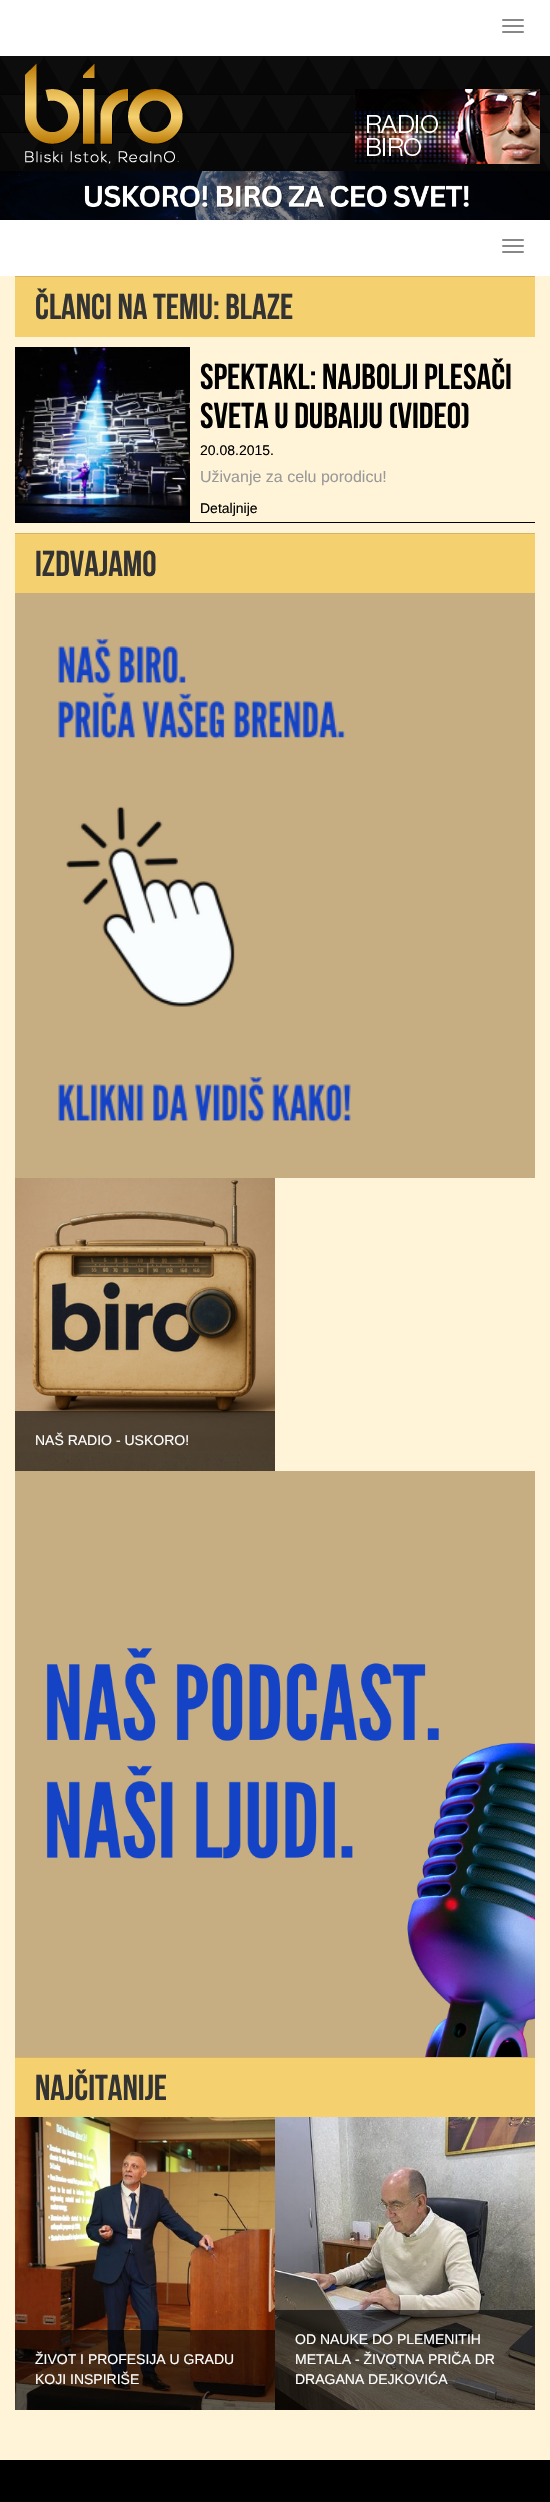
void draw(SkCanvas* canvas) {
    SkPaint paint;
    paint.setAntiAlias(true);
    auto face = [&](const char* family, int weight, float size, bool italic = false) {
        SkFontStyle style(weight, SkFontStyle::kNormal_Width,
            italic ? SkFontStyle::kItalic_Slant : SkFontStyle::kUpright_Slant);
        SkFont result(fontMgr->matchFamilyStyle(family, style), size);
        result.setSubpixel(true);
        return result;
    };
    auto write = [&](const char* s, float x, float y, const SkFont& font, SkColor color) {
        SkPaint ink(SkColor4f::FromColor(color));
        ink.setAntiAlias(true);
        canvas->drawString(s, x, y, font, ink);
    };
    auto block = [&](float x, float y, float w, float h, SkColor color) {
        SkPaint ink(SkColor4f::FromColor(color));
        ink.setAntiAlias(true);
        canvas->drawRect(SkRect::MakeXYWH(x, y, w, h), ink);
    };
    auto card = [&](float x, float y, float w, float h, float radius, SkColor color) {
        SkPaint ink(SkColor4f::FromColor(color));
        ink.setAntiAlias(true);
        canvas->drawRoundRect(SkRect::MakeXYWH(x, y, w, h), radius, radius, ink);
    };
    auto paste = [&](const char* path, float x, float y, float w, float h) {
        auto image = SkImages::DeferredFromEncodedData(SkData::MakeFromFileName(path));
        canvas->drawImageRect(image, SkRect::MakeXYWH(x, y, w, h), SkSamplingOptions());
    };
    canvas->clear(SkColorSetRGB(255, 244, 216));
    block(0, 0, 550, 276, SK_ColorWHITE);
    card(502, 19, 22, 2, 1, SkColorSetRGB(136, 136, 136));
    card(502, 25, 22, 2, 1, SkColorSetRGB(136, 136, 136));
    card(502, 31, 22, 2, 1, SkColorSetRGB(136, 136, 136));
    paste("pic1.png", 0, 56, 550, 115);
    paste("pic2.png", 25, 63, 158, 101);
    paste("pic3.png", 355, 89, 185, 75);
    paste("pic4.png", 0, 171, 550, 49);
    card(502, 239, 22, 2, 1, SkColorSetRGB(136, 136, 136));
    card(502, 245, 22, 2, 1, SkColorSetRGB(136, 136, 136));
    card(502, 251, 22, 2, 1, SkColorSetRGB(136, 136, 136));
    block(15, 277, 520, 60, SkColorSetRGB(245, 208, 111));
    block(15, 276, 520, 1, SkColorSetRGB(216, 179, 96));
    auto kFont1 = face("Bebas Neue", 400, 36);
    write("Članci na temu: Blaze", 35, 319, kFont1, SkColorSetRGB(51, 51, 51));
    block(15, 522, 520, 1, SK_ColorBLACK);
    paste("pic5.png", 15, 347, 175, 175);
    write("Spektakl: Najbolji plesači", 200, 389, kFont1, SK_ColorBLACK);
    write("sveta u Dubaiju (VIDEO)", 200, 428, kFont1, SK_ColorBLACK);
    auto kFont2 = face("Liberation Sans", 400, 14);
    write("20.08.2015.", 200, 455, kFont2, SK_ColorBLACK);
    auto kFont3 = face("Liberation Sans", 400, 16);
    write("Uživanje za celu porodicu!", 200, 482, kFont3, SkColorSetRGB(153, 153, 153));
    write("Detaljnije", 200, 513, kFont2, SK_ColorBLACK);
    block(15, 534, 520, 59, SkColorSetRGB(245, 208, 111));
    block(15, 533, 520, 1, SkColorSetRGB(216, 179, 96));
    write("Izdvajamo", 35, 576, kFont1, SkColorSetRGB(51, 51, 51));
    paste("pic6.png", 15, 593, 520, 585);
    paste("pic7.png", 15, 1178, 260, 293);
    block(15, 1411, 260, 60, SkColorSetARGB(153, 0, 0, 0));
    write("NAŠ RADIO - USKORO!", 35, 1445, kFont2, SK_ColorWHITE);
    paste("pic8.png", 15, 1471, 520, 586);
    block(15, 2058, 520, 59, SkColorSetRGB(245, 208, 111));
    block(15, 2057, 520, 1, SkColorSetRGB(216, 179, 96));
    write("Najčitanije", 35, 2100, kFont1, SkColorSetRGB(51, 51, 51));
    paste("pic9.png", 15, 2117, 260, 293);
    block(15, 2330, 260, 80, SkColorSetARGB(153, 0, 0, 0));
    write("ŽIVOT I PROFESIJA U GRADU", 35, 2364, kFont2, SK_ColorWHITE);
    write("KOJI INSPIRIŠE", 35, 2384, kFont2, SK_ColorWHITE);
    paste("pic10.png", 275, 2117, 260, 293);
    block(275, 2310, 260, 100, SkColorSetARGB(153, 0, 0, 0));
    write("OD NAUKE DO PLEMENITIH", 295, 2344, kFont2, SK_ColorWHITE);
    write("METALA - ŽIVOTNA PRIČA DR", 295, 2364, kFont2, SK_ColorWHITE);
    write("DRAGANA DEJKOVIĆA", 295, 2384, kFont2, SK_ColorWHITE);
    block(0, 2460, 550, 42, SK_ColorBLACK);
}
